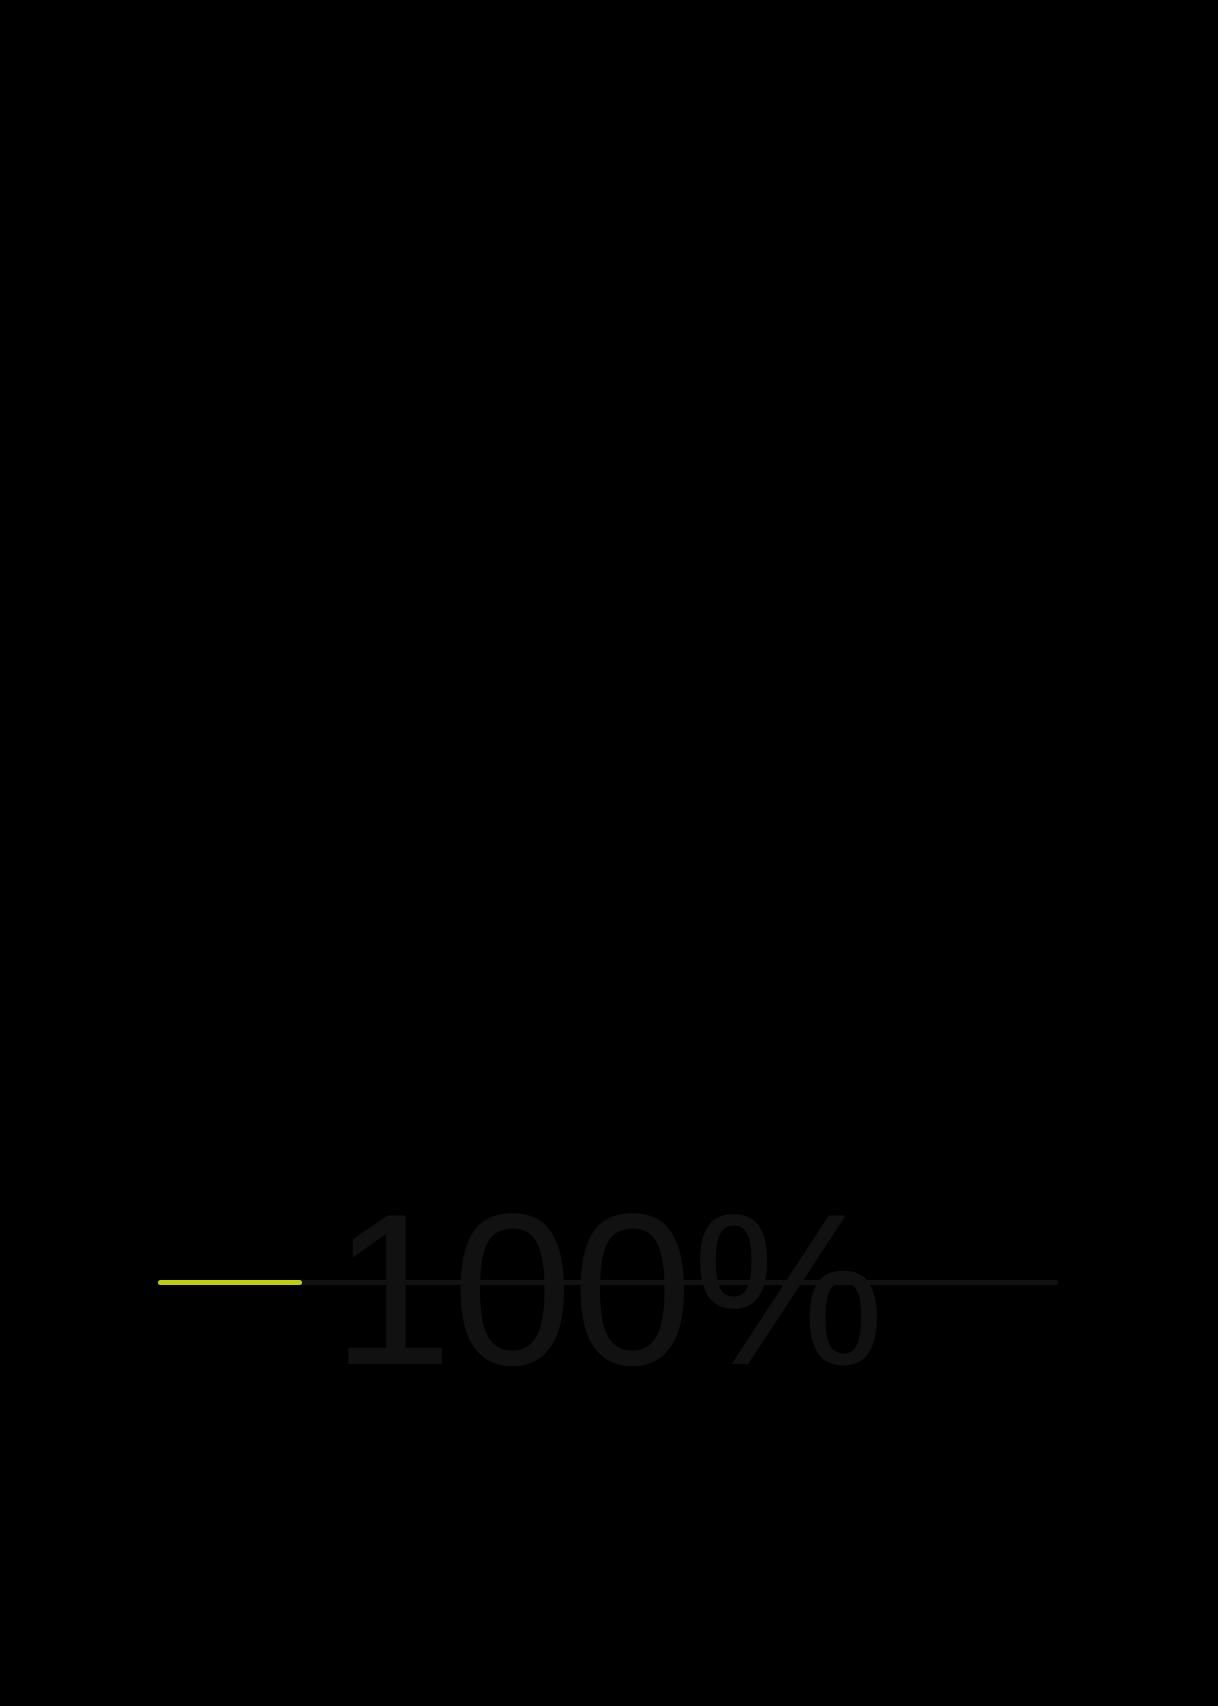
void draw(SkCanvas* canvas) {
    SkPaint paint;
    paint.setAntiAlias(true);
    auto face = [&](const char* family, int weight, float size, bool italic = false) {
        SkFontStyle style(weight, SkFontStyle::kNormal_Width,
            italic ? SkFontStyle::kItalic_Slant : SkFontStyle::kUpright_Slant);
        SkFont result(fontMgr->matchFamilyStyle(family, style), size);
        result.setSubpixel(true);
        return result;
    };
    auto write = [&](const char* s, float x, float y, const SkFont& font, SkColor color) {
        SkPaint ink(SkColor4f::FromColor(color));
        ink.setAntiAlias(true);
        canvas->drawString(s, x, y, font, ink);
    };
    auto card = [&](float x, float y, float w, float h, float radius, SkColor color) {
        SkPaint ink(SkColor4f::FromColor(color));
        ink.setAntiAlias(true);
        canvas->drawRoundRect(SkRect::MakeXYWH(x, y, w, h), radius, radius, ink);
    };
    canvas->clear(SK_ColorBLACK);
    card(158, 1280, 900, 5, 2.5f, SkColorSetRGB(17, 17, 17));
    card(158, 1280, 144, 5, 2.5f, SkColorSetRGB(192, 206, 10));
    auto kFont1 = face("Liberation Sans", 400, 216);
    write("100%", 332, 1364, kFont1, SkColorSetRGB(17, 17, 17));
}
